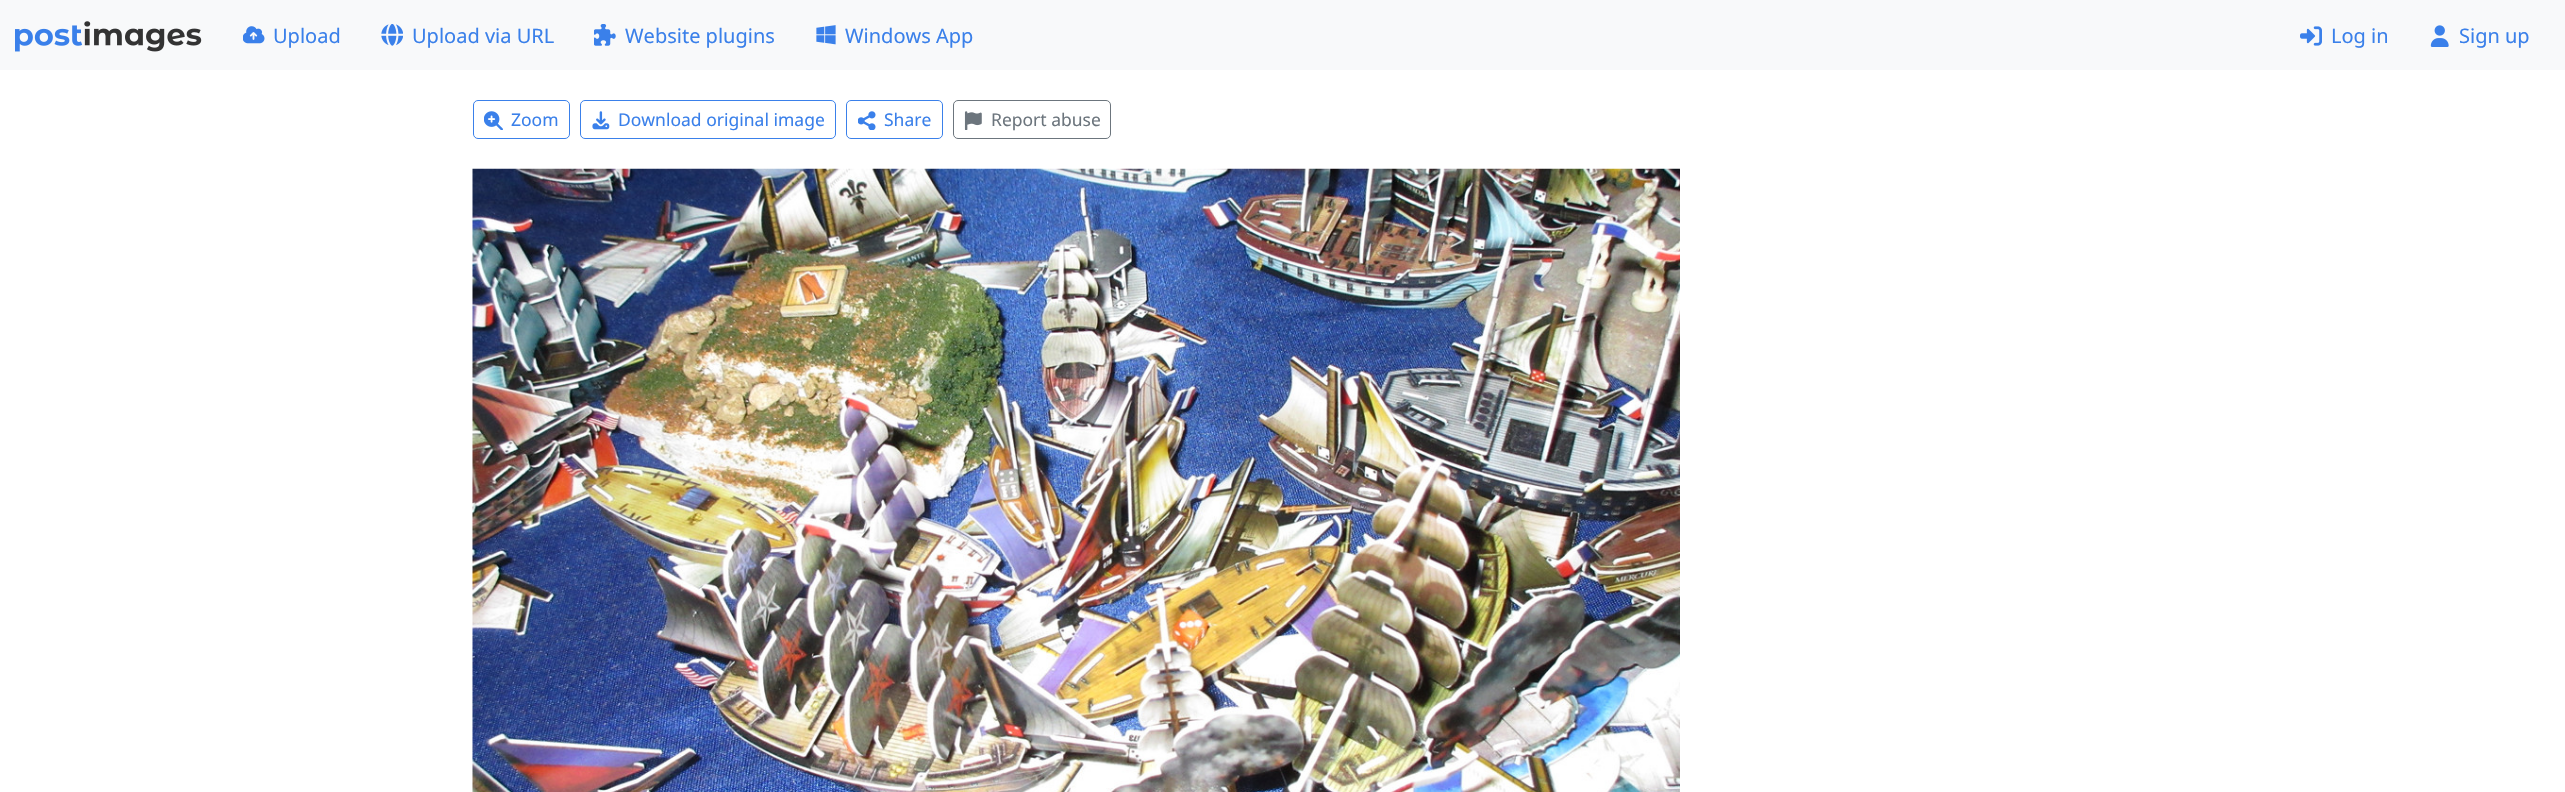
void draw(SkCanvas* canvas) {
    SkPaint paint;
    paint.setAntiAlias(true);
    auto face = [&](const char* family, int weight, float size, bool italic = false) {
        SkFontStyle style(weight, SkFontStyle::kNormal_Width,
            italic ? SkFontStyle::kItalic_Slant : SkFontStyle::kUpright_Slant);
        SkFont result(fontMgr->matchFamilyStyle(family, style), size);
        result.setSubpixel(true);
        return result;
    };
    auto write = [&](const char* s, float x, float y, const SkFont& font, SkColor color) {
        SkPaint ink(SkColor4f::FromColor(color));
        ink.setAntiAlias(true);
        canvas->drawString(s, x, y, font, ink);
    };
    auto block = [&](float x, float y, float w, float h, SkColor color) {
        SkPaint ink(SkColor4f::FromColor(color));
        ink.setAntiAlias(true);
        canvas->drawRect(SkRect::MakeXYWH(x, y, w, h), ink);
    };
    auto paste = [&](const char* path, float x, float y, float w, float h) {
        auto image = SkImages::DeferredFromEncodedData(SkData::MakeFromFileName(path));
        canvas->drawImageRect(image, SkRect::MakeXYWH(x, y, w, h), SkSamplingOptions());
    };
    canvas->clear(SK_ColorWHITE);
    block(0, 0, 2565, 70, SkColorSetRGB(248, 249, 250));
    paste("pic1.png", 15, 21, 187, 31);
    paste("pic2.png", 243, 26, 22, 18);
    auto kFont1 = face("Noto Sans", 400, 20);
    write("Upload", 273, 43, kFont1, SkColorSetRGB(58, 128, 234));
    paste("pic3.png", 381, 24, 22, 22);
    write("Upload via URL", 412, 43, kFont1, SkColorSetRGB(58, 128, 234));
    paste("pic4.png", 594, 24, 22, 22);
    write("Website plugins", 625, 43, kFont1, SkColorSetRGB(58, 128, 234));
    paste("pic5.png", 816, 25, 20, 20);
    write("Windows App", 845, 43, kFont1, SkColorSetRGB(58, 128, 234));
    paste("pic6.png", 2300, 26, 22, 20);
    write("Log in", 2331, 43, kFont1, SkColorSetRGB(58, 128, 234));
    paste("pic7.png", 2430, 25, 19, 22);
    write("Sign up", 2459, 43, kFont1, SkColorSetRGB(58, 128, 234));
    paint.setStyle(SkPaint::kStroke_Style);
    paint.setStrokeWidth(1);
    paint.setColor(SkColorSetRGB(58, 128, 234));
    canvas->drawRoundRect(SkRect::MakeXYWH(473.5f, 100.5f, 96, 38), 4.5f, 4.5f, paint);
    paste("pic8.png", 484, 111, 19, 19);
    auto kFont2 = face("Noto Sans", 400, 17.5f);
    write("Zoom", 511, 126, kFont2, SkColorSetRGB(58, 128, 234));
    canvas->drawRoundRect(SkRect::MakeXYWH(580.5f, 100.5f, 255, 38), 4.5f, 4.5f, paint);
    paste("pic9.png", 592, 111, 18, 19);
    write("Download original image", 618, 126, kFont2, SkColorSetRGB(58, 128, 234));
    canvas->drawRoundRect(SkRect::MakeXYWH(846.5f, 100.5f, 96, 38), 4.5f, 4.5f, paint);
    paste("pic10.png", 858, 111, 18, 19);
    write("Share", 884, 126, kFont2, SkColorSetRGB(58, 128, 234));
    paint.setColor(SkColorSetRGB(108, 117, 125));
    canvas->drawRoundRect(SkRect::MakeXYWH(953.5f, 100.5f, 157, 38), 4.5f, 4.5f, paint);
    paste("pic11.png", 964, 111, 18, 19);
    write("Report abuse", 991, 126, kFont2, SkColorSetRGB(108, 117, 125));
    paste("pic12.png", 472, 168, 1208, 624);
}
